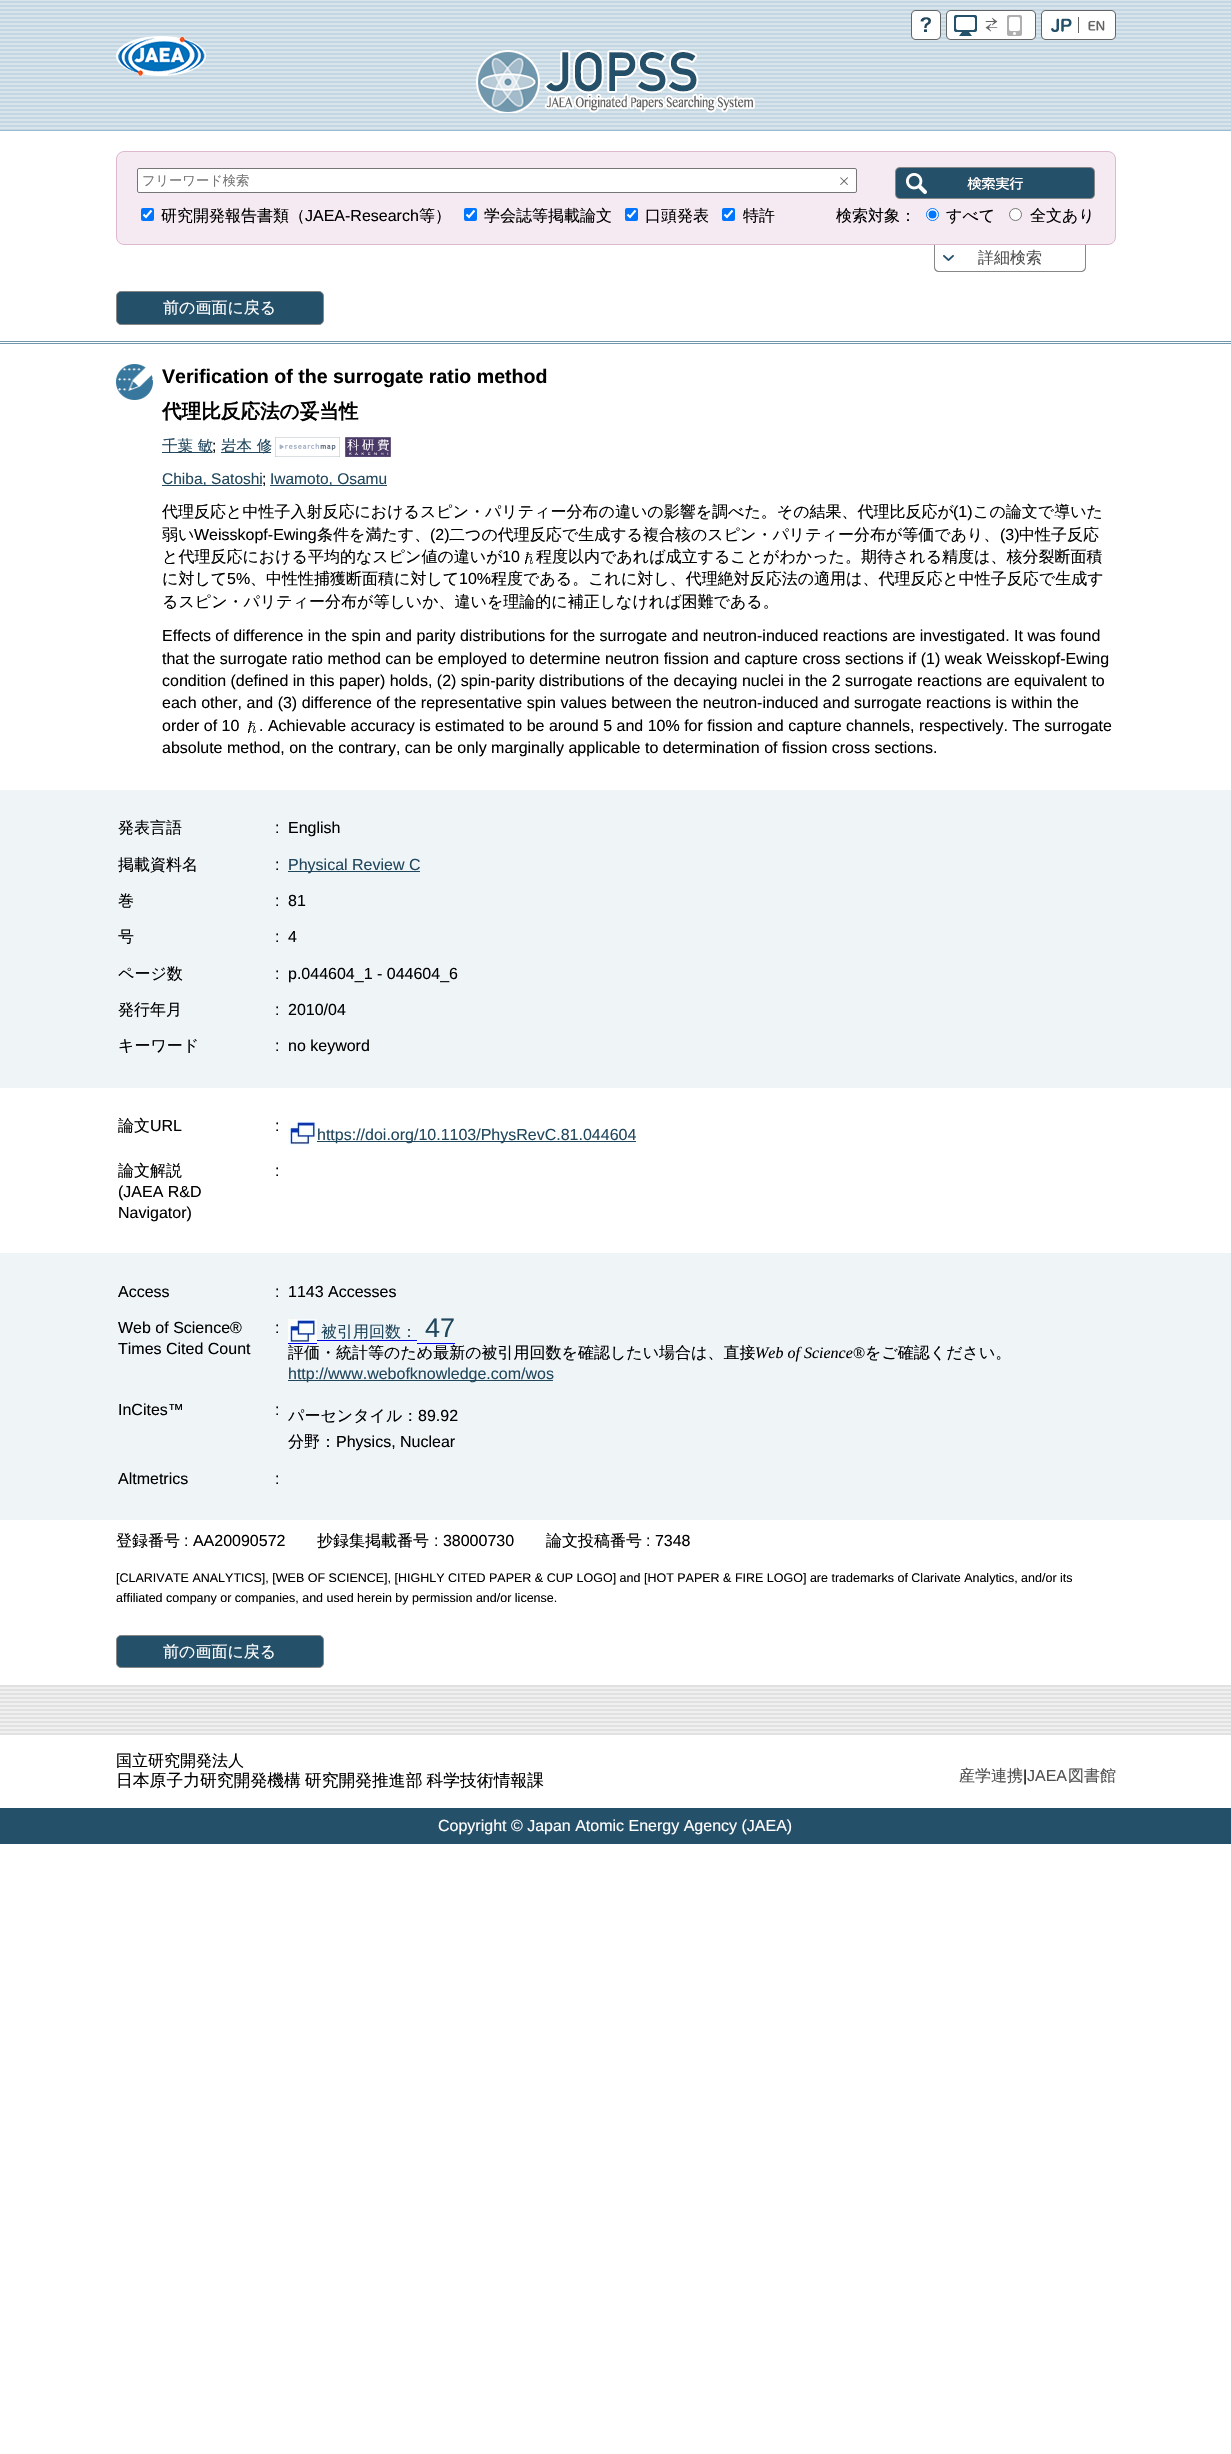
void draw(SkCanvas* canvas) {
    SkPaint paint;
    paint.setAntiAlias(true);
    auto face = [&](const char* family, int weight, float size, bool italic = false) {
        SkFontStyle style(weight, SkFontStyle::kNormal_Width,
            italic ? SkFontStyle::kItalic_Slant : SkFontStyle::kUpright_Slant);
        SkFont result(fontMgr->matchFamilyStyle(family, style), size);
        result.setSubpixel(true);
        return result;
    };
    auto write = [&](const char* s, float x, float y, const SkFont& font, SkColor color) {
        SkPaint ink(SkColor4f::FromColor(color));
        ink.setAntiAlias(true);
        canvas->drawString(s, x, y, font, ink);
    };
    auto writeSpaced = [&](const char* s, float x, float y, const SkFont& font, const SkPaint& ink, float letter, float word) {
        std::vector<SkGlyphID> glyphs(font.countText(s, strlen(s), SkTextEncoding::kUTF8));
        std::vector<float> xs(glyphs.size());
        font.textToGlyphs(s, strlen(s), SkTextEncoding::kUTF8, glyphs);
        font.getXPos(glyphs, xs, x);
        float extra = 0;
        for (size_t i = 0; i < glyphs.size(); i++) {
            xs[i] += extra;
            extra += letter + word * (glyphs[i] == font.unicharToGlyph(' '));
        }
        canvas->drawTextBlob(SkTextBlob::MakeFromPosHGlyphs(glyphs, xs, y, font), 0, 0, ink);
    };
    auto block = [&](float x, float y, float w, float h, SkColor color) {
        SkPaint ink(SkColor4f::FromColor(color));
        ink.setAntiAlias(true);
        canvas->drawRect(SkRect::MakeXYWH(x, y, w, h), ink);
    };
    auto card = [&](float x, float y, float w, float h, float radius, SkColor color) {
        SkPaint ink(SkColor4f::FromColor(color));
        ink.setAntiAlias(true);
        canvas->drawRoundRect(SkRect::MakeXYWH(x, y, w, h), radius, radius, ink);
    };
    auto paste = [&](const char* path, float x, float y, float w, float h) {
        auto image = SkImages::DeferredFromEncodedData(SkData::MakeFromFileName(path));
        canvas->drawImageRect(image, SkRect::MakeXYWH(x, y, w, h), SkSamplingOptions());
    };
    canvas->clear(SK_ColorWHITE);
    paste("pic1.png", 0, 0, 1231, 130);
    block(0, 130, 1231, 1, SkColorSetRGB(155, 187, 206));
    paste("pic2.png", 911, 10, 30, 30);
    paste("pic3.png", 946, 10, 90, 30);
    paste("pic4.png", 1041, 10, 75, 30);
    paste("pic5.png", 116, 36, 90, 40);
    paste("pic6.png", 476, 50, 279, 63);
    paint.setColor(SkColorSetRGB(245, 234, 241));
    canvas->drawRoundRect(SkRect::MakeXYWH(116.5f, 151.5f, 999, 93), 7.5f, 7.5f, paint);
    paint.setStyle(SkPaint::kStroke_Style);
    paint.setStrokeWidth(1);
    paint.setColor(SkColorSetRGB(221, 185, 208));
    canvas->drawRoundRect(SkRect::MakeXYWH(116.5f, 151.5f, 999, 93), 7.5f, 7.5f, paint);
    paint.setStyle(SkPaint::kFill_Style);
    paint.setColor(SK_ColorWHITE);
    canvas->drawRoundRect(SkRect::MakeXYWH(137.5f, 168.5f, 719, 24), 1.5f, 1.5f, paint);
    paint.setStyle(SkPaint::kStroke_Style);
    paint.setColor(SkColorSetRGB(118, 118, 118));
    canvas->drawRoundRect(SkRect::MakeXYWH(137.5f, 168.5f, 719, 24), 1.5f, 1.5f, paint);
    auto kFont1 = face("WenQuanYi Zen Hei", 500, 13.25f);
    write("フリーワード検索", 142, 185, kFont1, SkColorSetRGB(117, 117, 117));
    paste("pic7.png", 840, 177, 8, 8);
    paste("pic8.png", 895, 167, 200, 32);
    card(141, 208, 13, 13, 2, SkColorSetRGB(0, 117, 255));
    paint.setStrokeWidth(2.1f);
    paint.setColor(SK_ColorWHITE);
    canvas->drawPath(SkPathBuilder().moveTo(143.5f, 214.5f).lineTo(146, 217).lineTo(151.5f, 210.5f).detach(), paint);
    auto kFont2 = face("WenQuanYi Zen Hei", 500, 16);
    write("研究開発報告書類（", 161, 221, kFont2, SK_ColorBLACK);
    auto kFont3 = face("Liberation Sans", 400, 16);
    write("JAEA-Research", 305, 221, kFont3, SK_ColorBLACK);
    write("等）", 419, 221, kFont2, SK_ColorBLACK);
    card(464, 208, 13, 13, 2, SkColorSetRGB(0, 117, 255));
    canvas->drawPath(SkPathBuilder().moveTo(466.5f, 214.5f).lineTo(469, 217).lineTo(474.5f, 210.5f).detach(), paint);
    write("学会誌等掲載論文", 484, 221, kFont2, SK_ColorBLACK);
    card(625, 208, 13, 13, 2, SkColorSetRGB(0, 117, 255));
    canvas->drawPath(SkPathBuilder().moveTo(627.5f, 214.5f).lineTo(630, 217).lineTo(635.5f, 210.5f).detach(), paint);
    write("口頭発表", 645, 221, kFont2, SK_ColorBLACK);
    card(722, 208, 13, 13, 2, SkColorSetRGB(0, 117, 255));
    canvas->drawPath(SkPathBuilder().moveTo(724.5f, 214.5f).lineTo(727, 217).lineTo(732.5f, 210.5f).detach(), paint);
    write("特許", 743, 221, kFont2, SK_ColorBLACK);
    write("検索対象：", 836, 221, kFont2, SK_ColorBLACK);
    paint.setStyle(SkPaint::kFill_Style);
    canvas->drawCircle(932.5f, 214.5f, 6, paint);
    paint.setStyle(SkPaint::kStroke_Style);
    paint.setStrokeWidth(1);
    paint.setColor(SkColorSetRGB(0, 117, 255));
    canvas->drawCircle(932.5f, 214.5f, 6, paint);
    paint.setStyle(SkPaint::kFill_Style);
    canvas->drawCircle(932.5f, 214.5f, 4, paint);
    write("すべて", 946, 221, kFont2, SK_ColorBLACK);
    paint.setColor(SK_ColorWHITE);
    canvas->drawCircle(1015.5f, 214.5f, 6, paint);
    paint.setStyle(SkPaint::kStroke_Style);
    paint.setColor(SkColorSetRGB(118, 118, 118));
    canvas->drawCircle(1015.5f, 214.5f, 6, paint);
    write("全文あり", 1030, 221, kFont2, SK_ColorBLACK);
    paint.setStyle(SkPaint::kFill_Style);
    paint.setColor(SkColorSetRGB(135, 135, 135));
    canvas->drawPath(SkPathBuilder(SkPathFillType::kEvenOdd).moveTo(934, 245).lineTo(1086, 245).lineTo(1086, 267).cubicTo(1086, 270, 1084, 272, 1081, 272).lineTo(939, 272).cubicTo(936, 272, 934, 270, 934, 267).close().moveTo(935, 245).lineTo(1085, 245).lineTo(1085, 267).cubicTo(1085, 269, 1083, 271, 1081, 271).lineTo(939, 271).cubicTo(937, 271, 935, 269, 935, 267).close().detach(), paint);
    paste("pic9.png", 943, 255, 11, 6);
    write("詳細検索", 978, 263, kFont2, SkColorSetRGB(80, 80, 80));
    paint.setColor(SkColorSetRGB(37, 80, 106));
    canvas->drawRoundRect(SkRect::MakeXYWH(116.5f, 291.5f, 207, 33), 4.5f, 4.5f, paint);
    paint.setStyle(SkPaint::kStroke_Style);
    paint.setColor(SkColorSetRGB(135, 135, 135));
    canvas->drawRoundRect(SkRect::MakeXYWH(116.5f, 291.5f, 207, 33), 4.5f, 4.5f, paint);
    write("前の画面に戻る", 163, 313, kFont2, SK_ColorWHITE);
    block(0, 341, 1231, 1, SkColorSetRGB(113, 151, 173));
    block(0, 343, 1231, 1, SkColorSetRGB(113, 151, 173));
    paste("pic10.png", 116, 364, 37, 36);
    auto kFont4 = face("Liberation Sans", 700, 19.6f);
    write("Verification of the surrogate ratio method", 162, 383, kFont4, SK_ColorBLACK);
    auto kFont5 = face("WenQuanYi Zen Hei", 700, 19.6f);
    write("代理比反応法の妥当性", 162, 418, kFont5, SK_ColorBLACK);
    block(162, 452, 50, 1, SkColorSetRGB(33, 71, 93));
    auto kFont6 = face("WenQuanYi Zen Hei", 500, 15.5f);
    write("千葉 敏", 162, 451, kFont6, SkColorSetRGB(33, 71, 93));
    auto kFont7 = face("Liberation Sans", 400, 15.5f);
    write(";", 212, 451, kFont7, SK_ColorBLACK);
    block(221, 452, 50, 1, SkColorSetRGB(33, 71, 93));
    write("岩本 修", 221, 451, kFont6, SkColorSetRGB(33, 71, 93));
    paste("pic11.png", 275, 437, 65, 20);
    paste("pic12.png", 345, 437, 46, 20);
    block(162, 485, 100, 1, SkColorSetRGB(33, 71, 93));
    write("Chiba, Satoshi", 162, 484, kFont7, SkColorSetRGB(33, 71, 93));
    write(";", 262, 484, kFont7, SK_ColorBLACK);
    block(270, 485, 117, 1, SkColorSetRGB(33, 71, 93));
    write("Iwamoto, Osamu", 270, 484, kFont7, SkColorSetRGB(33, 71, 93));
    write("代理反応と中性子入射反応におけるスピン・パリティー分布の違いの影響を調べた。その結果、代理比反応が", 162, 517, kFont2, SK_ColorBLACK);
    write("(1)", 953, 517, kFont3, SK_ColorBLACK);
    write("この論文で導いた", 973, 517, kFont2, SK_ColorBLACK);
    write("弱い", 162, 540, kFont2, SK_ColorBLACK);
    write("Weisskopf-Ewing", 194, 540, kFont3, SK_ColorBLACK);
    write("条件を満たす、", 317, 540, kFont2, SK_ColorBLACK);
    write("(2)", 430, 540, kFont3, SK_ColorBLACK);
    write("二つの代理反応で生成する複合核のスピン・パリティー分布が等価であり、", 449, 540, kFont2, SK_ColorBLACK);
    write("(3)", 1000, 540, kFont3, SK_ColorBLACK);
    write("中性子反応", 1019, 540, kFont2, SK_ColorBLACK);
    write("と代理反応における平均的なスピン値の違いが", 162, 562, kFont2, SK_ColorBLACK);
    write("10", 502, 562, kFont3, SK_ColorBLACK);
    paste("pic13.png", 525, 552, 8, 12);
    write("程度以内であれば成立することがわかった。期待される精度は、核分裂断面積", 536, 562, kFont2, SK_ColorBLACK);
    write("に対して", 162, 584, kFont2, SK_ColorBLACK);
    write("5%", 227, 584, kFont3, SK_ColorBLACK);
    write("、中性性捕獲断面積に対して", 250, 584, kFont2, SK_ColorBLACK);
    write("10%", 459, 584, kFont3, SK_ColorBLACK);
    write("程度である。これに対し、代理絶対反応法の適用は、代理反応と中性子反応で生成す", 491, 584, kFont2, SK_ColorBLACK);
    write("るスピン・パリティー分布が等しいか、違いを理論的に補正しなければ困難である。", 162, 607, kFont2, SK_ColorBLACK);
    write("Effects of difference in the spin and parity distributions for the surrogate and neutron-induced reactions are investigated. It was found", 162, 641, kFont3, SK_ColorBLACK);
    write("that the surrogate ratio method can be employed to determine neutron fission and capture cross sections if (1) weak Weisskopf-Ewing", 162, 664, kFont3, SK_ColorBLACK);
    write("condition (defined in this paper) holds, (2) spin-parity distributions of the decaying nuclei in the 2 surrogate reactions are equivalent to", 162, 686, kFont3, SK_ColorBLACK);
    write("each other, and (3) difference of the representative spin values between the neutron-induced and surrogate reactions is within the", 162, 708, kFont3, SK_ColorBLACK);
    write("order of 10", 162, 731, kFont3, SK_ColorBLACK);
    paste("pic13.png", 248, 721, 8, 12);
    write(". Achievable accuracy is estimated to be around 5 and 10% for fission and capture channels, respectively. The surrogate", 259, 731, kFont3, SK_ColorBLACK);
    write("absolute method, on the contrary, can be only marginally applicable to determination of fission cross sections.", 162, 753, kFont3, SK_ColorBLACK);
    block(0, 790, 1231, 298, SkColorSetRGB(239, 244, 247));
    write("発表言語", 118, 833, kFont2, SK_ColorBLACK);
    write(":", 275, 833, kFont3, SK_ColorBLACK);
    write("English", 288, 833, kFont3, SK_ColorBLACK);
    write("掲載資料名", 118, 870, kFont2, SK_ColorBLACK);
    write(":", 275, 870, kFont3, SK_ColorBLACK);
    block(288, 871, 132, 1, SkColorSetRGB(33, 71, 93));
    write("Physical Review C", 288, 870, kFont3, SkColorSetRGB(33, 71, 93));
    write("巻", 118, 906, kFont2, SK_ColorBLACK);
    write(":", 275, 906, kFont3, SK_ColorBLACK);
    write("81", 288, 906, kFont3, SK_ColorBLACK);
    write("号", 118, 942, kFont2, SK_ColorBLACK);
    write(":", 275, 942, kFont3, SK_ColorBLACK);
    write("4", 288, 942, kFont3, SK_ColorBLACK);
    write("ページ数", 118, 979, kFont2, SK_ColorBLACK);
    write(":", 275, 979, kFont3, SK_ColorBLACK);
    write("p.044604_1 - 044604_6", 288, 979, kFont3, SK_ColorBLACK);
    write("発行年月", 118, 1015, kFont2, SK_ColorBLACK);
    write(":", 275, 1015, kFont3, SK_ColorBLACK);
    write("2010/04", 288, 1015, kFont3, SK_ColorBLACK);
    write("キーワード", 118, 1051, kFont2, SK_ColorBLACK);
    write(":", 275, 1051, kFont3, SK_ColorBLACK);
    write("no keyword", 288, 1051, kFont3, SK_ColorBLACK);
    write("論文", 118, 1131, kFont2, SK_ColorBLACK);
    write("URL", 150, 1131, kFont3, SK_ColorBLACK);
    write(":", 275, 1131, kFont3, SK_ColorBLACK);
    paste("pic14.png", 288, 1121, 29, 24);
    block(317, 1141, 319, 1, SkColorSetRGB(33, 71, 93));
    write("https://doi.org/10.1103/PhysRevC.81.044604", 317, 1140, kFont3, SkColorSetRGB(33, 71, 93));
    write("論文解説", 118, 1176, kFont2, SK_ColorBLACK);
    write("(JAEA R&D", 118, 1197, kFont3, SK_ColorBLACK);
    write("Navigator)", 118, 1218, kFont3, SK_ColorBLACK);
    write(":", 275, 1176, kFont3, SK_ColorBLACK);
    block(0, 1253, 1231, 267, SkColorSetRGB(239, 244, 247));
    write("Access", 118, 1297, kFont3, SK_ColorBLACK);
    write(":", 275, 1297, kFont3, SK_ColorBLACK);
    write("1143 Accesses", 288, 1297, kFont3, SK_ColorBLACK);
    write("Web of Science®", 118, 1333, kFont3, SK_ColorBLACK);
    write("Times Cited Count", 118, 1354, kFont3, SK_ColorBLACK);
    write(":", 275, 1333, kFont3, SK_ColorBLACK);
    paste("pic14.png", 288, 1319, 29, 24);
    write("被引用回数：", 321, 1337, kFont2, SkColorSetRGB(33, 71, 93));
    block(288, 1343, 29, 1, SkColorSetRGB(0, 0, 238));
    block(317, 1340, 100, 1, SkColorSetRGB(0, 0, 238));
    block(417, 1343, 38, 1, SkColorSetRGB(0, 0, 238));
    auto kFont8 = face("Liberation Sans", 400, 27);
    write("47", 425, 1337, kFont8, SkColorSetRGB(33, 71, 93));
    write("評価・統計等のため最新の被引用回数を確認したい場合は、直接", 288, 1358, kFont2, SK_ColorBLACK);
    auto kFont9 = face("Liberation Serif", 400, 16, true);
    write("Web of Science®", 755, 1358, kFont9, SK_ColorBLACK);
    write("をご確認ください。", 865, 1358, kFont2, SK_ColorBLACK);
    block(288, 1380, 265, 1, SkColorSetRGB(33, 71, 93));
    write("http://www.webofknowledge.com/wos", 288, 1379, kFont3, SkColorSetRGB(33, 71, 93));
    write("InCites™", 118, 1415, kFont3, SK_ColorBLACK);
    write(":", 275, 1415, kFont3, SK_ColorBLACK);
    write("パーセンタイル：", 288, 1421, kFont2, SK_ColorBLACK);
    write("89.92", 418, 1421, kFont3, SK_ColorBLACK);
    write("分野：", 288, 1447, kFont2, SK_ColorBLACK);
    write("Physics, Nuclear", 336, 1447, kFont3, SK_ColorBLACK);
    write("Altmetrics", 118, 1484, kFont3, SK_ColorBLACK);
    write(":", 275, 1484, kFont3, SK_ColorBLACK);
    write("登録番号", 116, 1546, kFont2, SK_ColorBLACK);
    write(": AA20090572", 184, 1546, kFont3, SK_ColorBLACK);
    write("抄録集掲載番号", 317, 1546, kFont2, SK_ColorBLACK);
    write(": 38000730", 434, 1546, kFont3, SK_ColorBLACK);
    write("論文投稿番号", 546, 1546, kFont2, SK_ColorBLACK);
    write(": 7348", 646, 1546, kFont3, SK_ColorBLACK);
    auto kFont10 = face("Liberation Sans", 400, 12.5f);
    write("[CLARIVATE ANALYTICS], [WEB OF SCIENCE], [HIGHLY CITED PAPER & CUP LOGO] and [HOT PAPER & FIRE LOGO] are trademarks of Clarivate Analytics, and/or its", 116, 1582, kFont10, SK_ColorBLACK);
    write("affiliated company or companies, and used herein by permission and/or license.", 116, 1602, kFont10, SK_ColorBLACK);
    paint.setStyle(SkPaint::kFill_Style);
    paint.setColor(SkColorSetRGB(37, 80, 106));
    canvas->drawRoundRect(SkRect::MakeXYWH(116.5f, 1635.5f, 207, 32), 4.5f, 4.5f, paint);
    paint.setStyle(SkPaint::kStroke_Style);
    paint.setColor(SkColorSetRGB(135, 135, 135));
    canvas->drawRoundRect(SkRect::MakeXYWH(116.5f, 1635.5f, 207, 32), 4.5f, 4.5f, paint);
    write("前の画面に戻る", 163, 1657, kFont2, SK_ColorWHITE);
    paste("pic15.png", 0, 1685, 1231, 50);
    write("国立研究開発法人", 116, 1766, kFont2, SK_ColorBLACK);
    auto kFont11 = face("WenQuanYi Zen Hei", 500, 16.8f);
    paint.setStyle(SkPaint::kFill_Style);
    paint.setColor(SK_ColorBLACK);
    writeSpaced("日本原子力研究開発機構 研究開発推進部 科学技術情報課", 116, 1786, kFont11, paint, 0, -1);
    write("産学連携", 959, 1781, kFont2, SkColorSetRGB(80, 80, 80));
    write("|", 1023, 1781, kFont3, SK_ColorBLACK);
    write("JAEA", 1027, 1781, kFont3, SkColorSetRGB(80, 80, 80));
    write("図書館", 1068, 1781, kFont2, SkColorSetRGB(80, 80, 80));
    block(0, 1808, 1231, 36, SkColorSetRGB(37, 80, 106));
    write("Copyright © Japan Atomic Energy Agency (JAEA)", 438, 1831, kFont3, SK_ColorWHITE);
}
